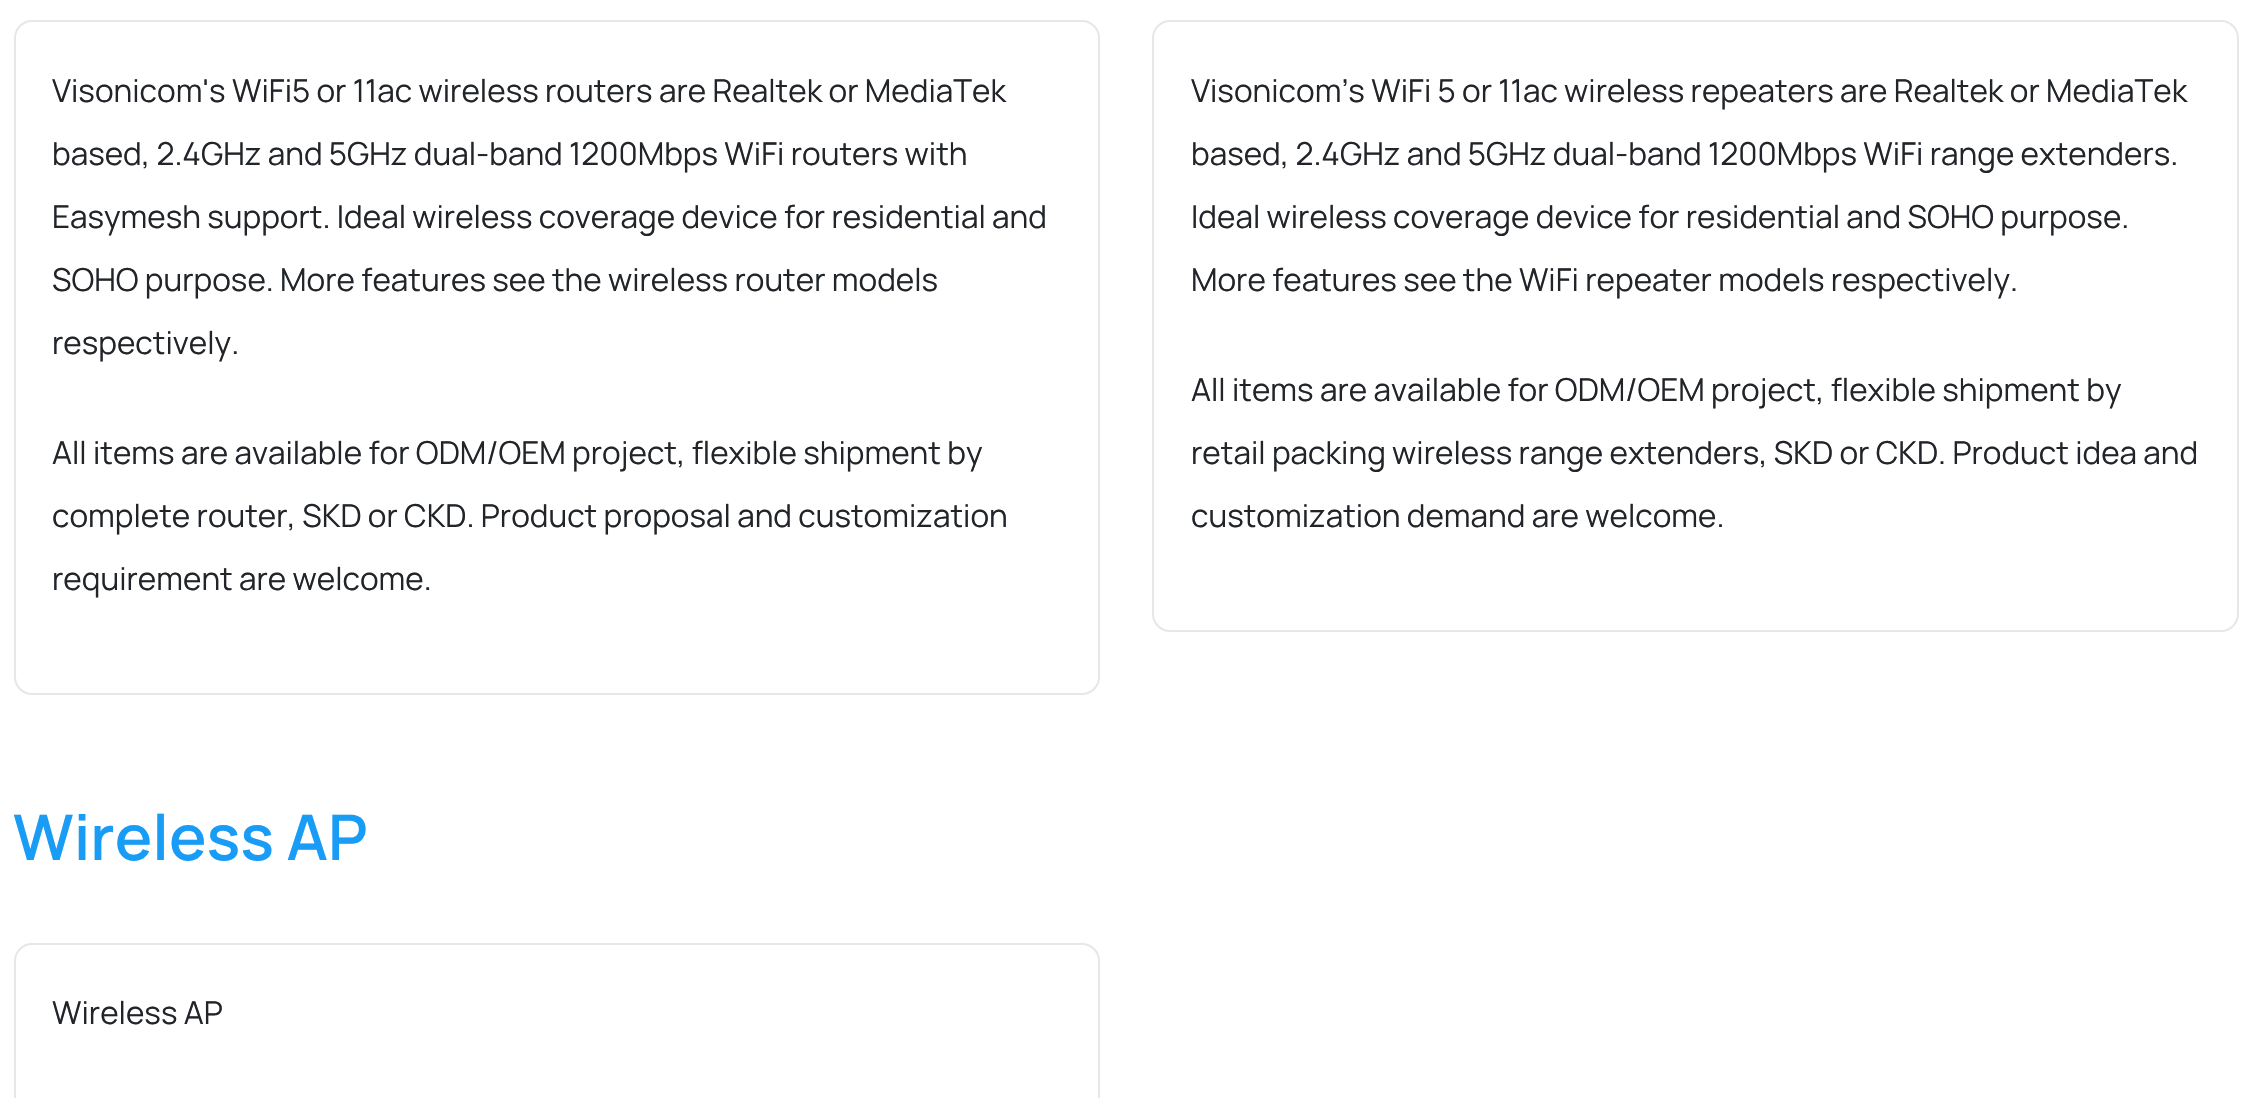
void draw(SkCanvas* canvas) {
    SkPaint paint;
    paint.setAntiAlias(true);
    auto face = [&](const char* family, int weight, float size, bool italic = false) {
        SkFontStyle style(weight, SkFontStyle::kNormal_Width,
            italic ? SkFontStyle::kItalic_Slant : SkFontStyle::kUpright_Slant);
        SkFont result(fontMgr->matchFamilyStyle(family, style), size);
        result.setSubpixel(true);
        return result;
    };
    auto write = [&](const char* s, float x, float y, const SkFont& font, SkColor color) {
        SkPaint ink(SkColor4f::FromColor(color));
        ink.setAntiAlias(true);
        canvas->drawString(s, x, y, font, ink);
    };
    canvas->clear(SK_ColorWHITE);
    paint.setStyle(SkPaint::kStroke_Style);
    paint.setStrokeWidth(2);
    paint.setColor(SkColorSetRGB(229, 231, 235));
    canvas->drawRoundRect(SkRect::MakeXYWH(15, 21, 1084, 673), 17, 17, paint);
    auto kFont1 = face("Manrope", 400, 31.5f);
    write("Visonicom's WiFi5 or 11ac wireless routers are Realtek or MediaTek", 52, 102, kFont1, SkColorSetRGB(33, 37, 41));
    write("based, 2.4GHz and 5GHz dual-band 1200Mbps WiFi routers with", 52, 165, kFont1, SkColorSetRGB(33, 37, 41));
    write("Easymesh support. Ideal wireless coverage device for residential and", 52, 228, kFont1, SkColorSetRGB(33, 37, 41));
    write("SOHO purpose. More features see the wireless router models", 52, 291, kFont1, SkColorSetRGB(33, 37, 41));
    write("respectively.", 52, 354, kFont1, SkColorSetRGB(33, 37, 41));
    write("All items are available for ODM/OEM project, flexible shipment by", 52, 464, kFont1, SkColorSetRGB(33, 37, 41));
    write("complete router, SKD or CKD. Product proposal and customization", 52, 527, kFont1, SkColorSetRGB(33, 37, 41));
    write("requirement are welcome.", 52, 590, kFont1, SkColorSetRGB(33, 37, 41));
    canvas->drawRoundRect(SkRect::MakeXYWH(1153, 21, 1085, 610), 17, 17, paint);
    write("Visonicom’s WiFi 5 or 11ac wireless repeaters are Realtek or MediaTek", 1191, 102, kFont1, SkColorSetRGB(33, 37, 41));
    write("based, 2.4GHz and 5GHz dual-band 1200Mbps WiFi range extenders.", 1191, 165, kFont1, SkColorSetRGB(33, 37, 41));
    write("Ideal wireless coverage device for residential and SOHO purpose.", 1191, 228, kFont1, SkColorSetRGB(33, 37, 41));
    write("More features see the WiFi repeater models respectively.", 1191, 291, kFont1, SkColorSetRGB(33, 37, 41));
    write("All items are available for ODM/OEM project, flexible shipment by", 1191, 401, kFont1, SkColorSetRGB(33, 37, 41));
    write("retail packing wireless range extenders, SKD or CKD. Product idea and", 1191, 464, kFont1, SkColorSetRGB(33, 37, 41));
    write("customization demand are welcome.", 1191, 527, kFont1, SkColorSetRGB(33, 37, 41));
    auto kFont2 = face("Manrope", 600, 63);
    write("Wireless AP", 13, 860, kFont2, SkColorSetRGB(25, 156, 245));
    canvas->drawRoundRect(SkRect::MakeXYWH(15, 944, 1084, 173), 17, 17, paint);
    write("Wireless AP", 52, 1024, kFont1, SkColorSetRGB(33, 37, 41));
}
